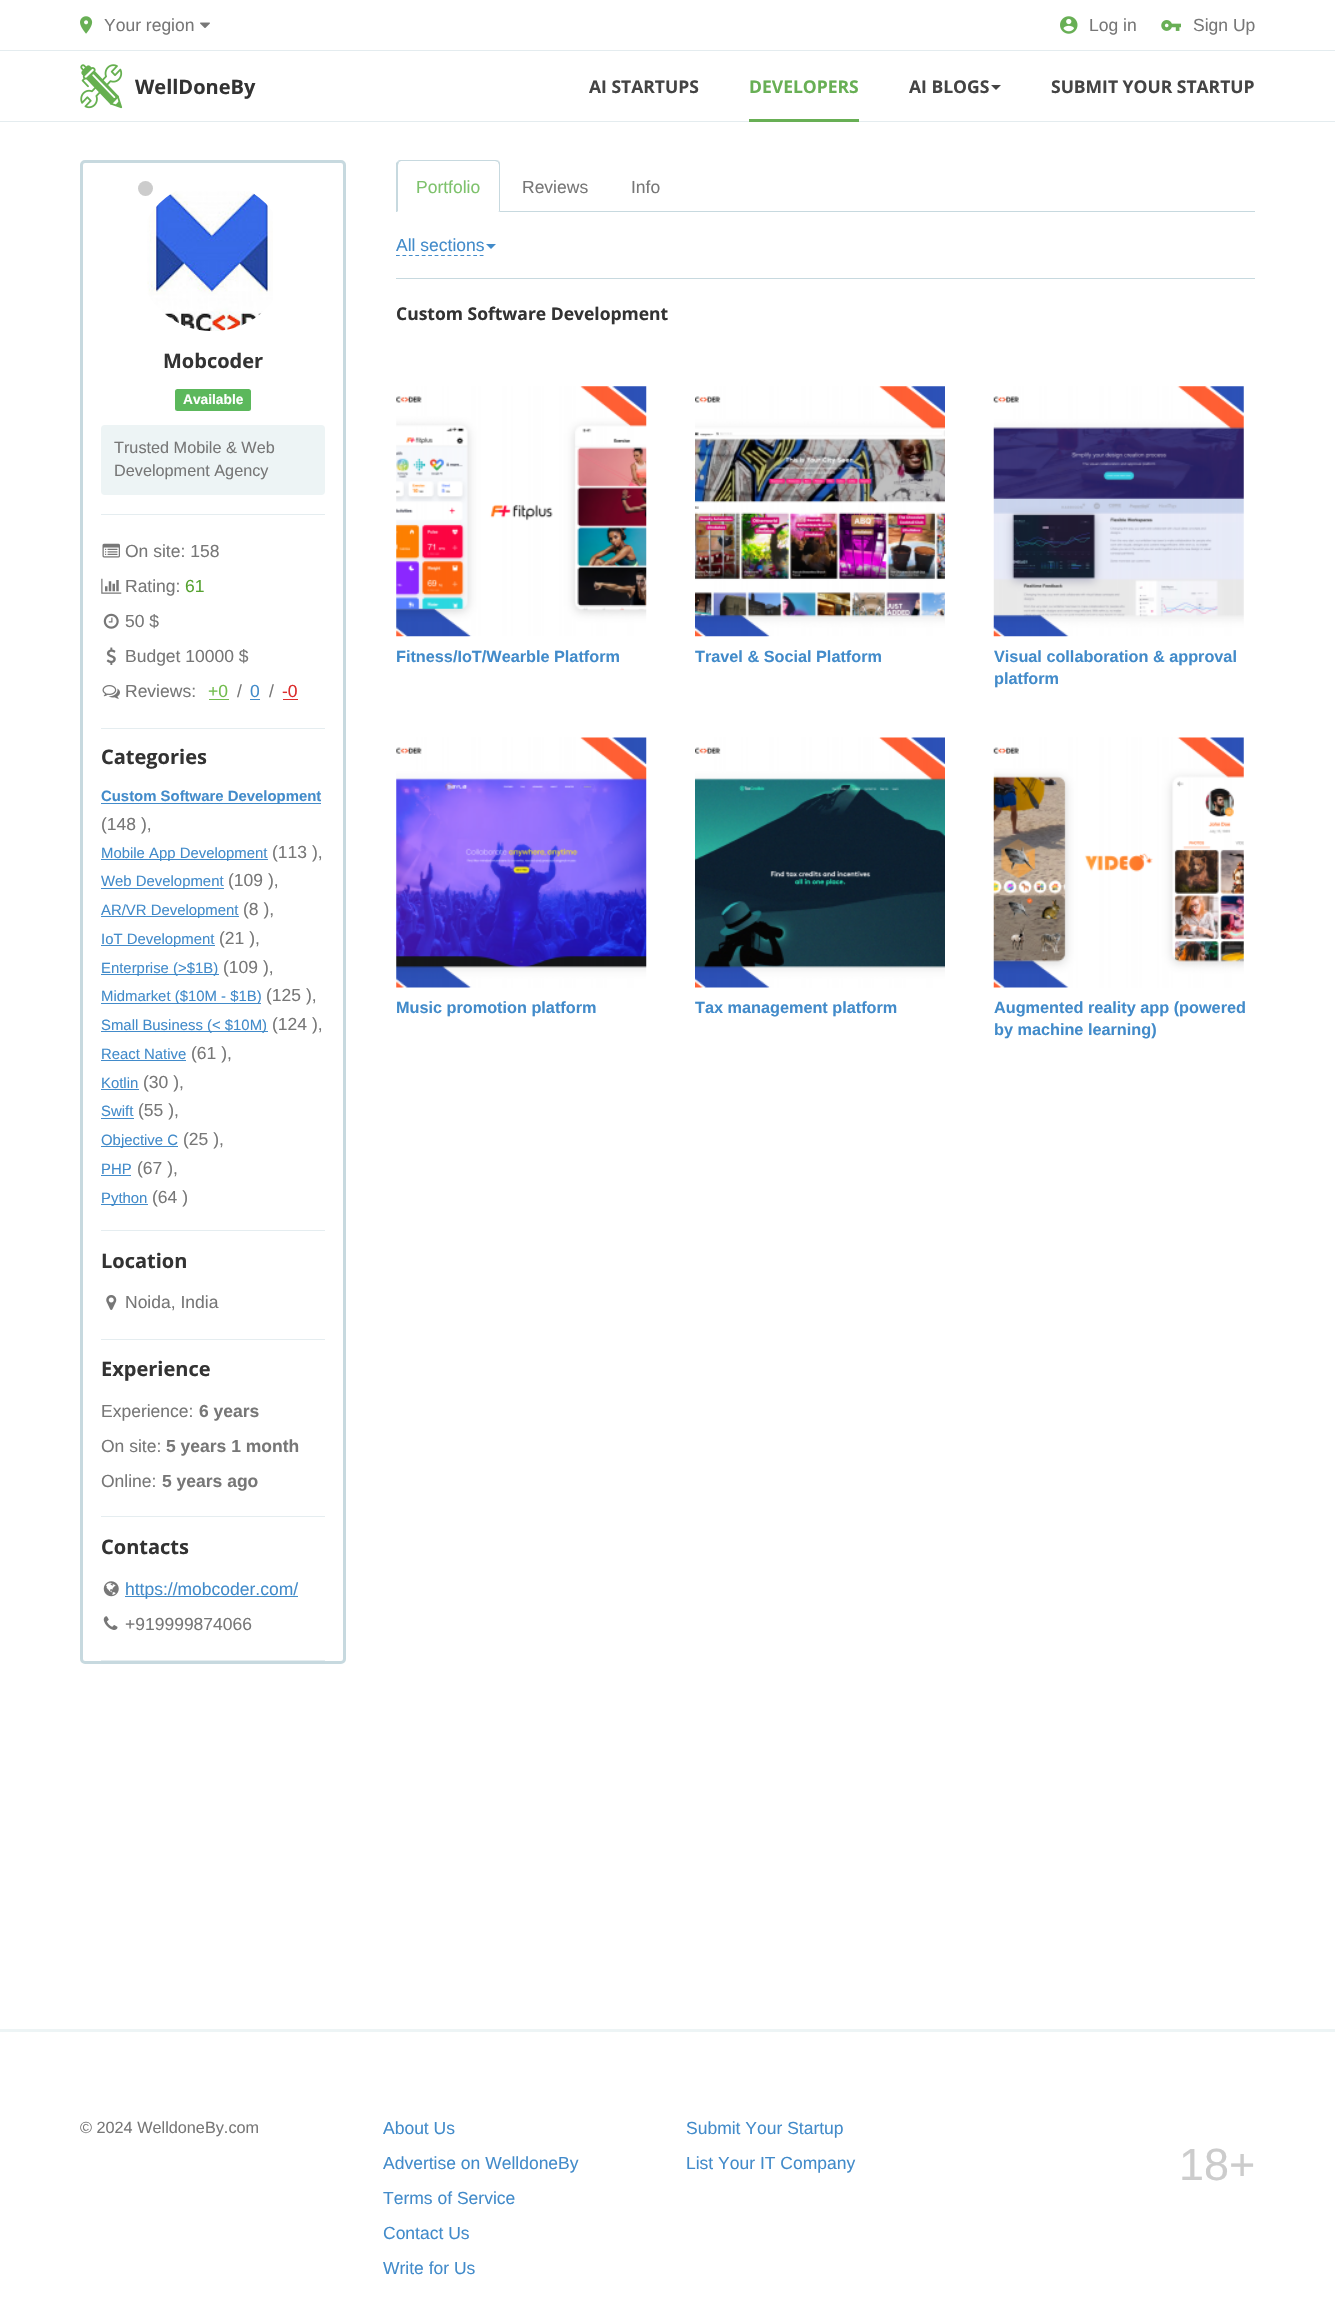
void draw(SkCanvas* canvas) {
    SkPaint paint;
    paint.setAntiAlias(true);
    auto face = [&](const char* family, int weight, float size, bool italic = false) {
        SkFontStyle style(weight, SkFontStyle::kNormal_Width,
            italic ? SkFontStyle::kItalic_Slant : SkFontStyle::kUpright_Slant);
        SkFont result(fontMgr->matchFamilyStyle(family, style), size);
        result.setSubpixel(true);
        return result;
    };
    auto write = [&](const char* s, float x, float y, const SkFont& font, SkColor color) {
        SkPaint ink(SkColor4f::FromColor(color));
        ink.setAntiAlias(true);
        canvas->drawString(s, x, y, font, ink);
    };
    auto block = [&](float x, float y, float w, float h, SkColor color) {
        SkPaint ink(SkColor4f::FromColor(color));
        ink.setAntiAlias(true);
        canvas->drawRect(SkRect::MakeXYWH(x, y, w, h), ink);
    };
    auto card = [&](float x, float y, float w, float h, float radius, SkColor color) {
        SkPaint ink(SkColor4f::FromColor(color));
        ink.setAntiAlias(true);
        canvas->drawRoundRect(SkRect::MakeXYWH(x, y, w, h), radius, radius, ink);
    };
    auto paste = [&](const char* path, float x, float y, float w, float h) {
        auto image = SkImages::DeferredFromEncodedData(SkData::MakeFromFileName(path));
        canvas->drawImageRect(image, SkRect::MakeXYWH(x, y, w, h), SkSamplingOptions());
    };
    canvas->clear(SK_ColorWHITE);
    block(0, 50, 1335, 1, SkColorSetRGB(228, 236, 239));
    paste("pic1.png", 80, 16, 13, 18);
    auto kFont1 = face("Liberation Sans", 400, 17.5f);
    write("Your region", 104, 31, kFont1, SkColorSetRGB(119, 119, 119));
    paste("pic2.png", 200, 22, 10, 6);
    paste("pic3.png", 1060, 16, 18, 18);
    write("Log in", 1089, 31, kFont1, SkColorSetRGB(119, 119, 119));
    paste("pic4.png", 1161, 20, 20, 11);
    write("Sign Up", 1193, 31, kFont1, SkColorSetRGB(119, 119, 119));
    block(0, 121, 1335, 1, SkColorSetRGB(228, 236, 239));
    paste("pic5.png", 80, 64, 43, 45);
    auto kFont2 = face("Open Sans", 700, 20);
    write("WellDoneBy", 135, 94, kFont2, SkColorSetRGB(51, 51, 51));
    auto kFont3 = face("Open Sans", 700, 17.5f);
    write("AI STARTUPS", 589, 93, kFont3, SkColorSetRGB(68, 68, 68));
    block(749, 119, 110, 3, SkColorSetRGB(104, 175, 85));
    write("DEVELOPERS", 749, 93, kFont3, SkColorSetRGB(104, 175, 85));
    write("AI BLOGS", 909, 93, kFont3, SkColorSetRGB(68, 68, 68));
    paint.setColor(SkColorSetRGB(68, 68, 68));
    canvas->drawPath(SkPathBuilder().moveTo(991, 85).lineTo(1001, 85).lineTo(996, 90).close().detach(), paint);
    write("SUBMIT YOUR STARTUP", 1051, 93, kFont3, SkColorSetRGB(68, 68, 68));
    paint.setStyle(SkPaint::kStroke_Style);
    paint.setStrokeWidth(3);
    paint.setColor(SkColorSetRGB(199, 217, 223));
    canvas->drawRoundRect(SkRect::MakeXYWH(81.5f, 161.5f, 263, 1501), 3.5f, 3.5f, paint);
    block(101, 514, 224, 1, SkColorSetRGB(229, 237, 240));
    paste("pic6.png", 147, 191, 126, 140);
    paint.setStyle(SkPaint::kFill_Style);
    paint.setColor(SkColorSetRGB(204, 204, 204));
    canvas->drawCircle(145.5f, 188.5f, 7.5f, paint);
    write("Mobcoder", 163, 368, kFont2, SkColorSetRGB(51, 51, 51));
    card(175, 389, 76, 22, 2.5f, SkColorSetRGB(92, 184, 92));
    auto kFont4 = face("Liberation Sans", 700, 13.75f);
    write("Available", 183, 404, kFont4, SK_ColorWHITE);
    card(101, 425, 224, 70, 4, SkColorSetRGB(237, 244, 245));
    auto kFont5 = face("Liberation Sans", 400, 16.25f);
    write("Trusted Mobile & Web", 114, 453, kFont5, SkColorSetRGB(119, 119, 119));
    write("Development Agency", 114, 476, kFont5, SkColorSetRGB(119, 119, 119));
    block(101, 728, 224, 1, SkColorSetRGB(229, 237, 240));
    paste("pic7.png", 102, 543, 18, 15);
    write("On site: 158", 125, 557, kFont1, SkColorSetRGB(119, 119, 119));
    paste("pic8.png", 101, 578, 21, 16);
    write("Rating:", 125, 592, kFont1, SkColorSetRGB(119, 119, 119));
    write("61", 185, 592, kFont1, SkColorSetRGB(86, 162, 48));
    paste("pic9.png", 103, 613, 16, 16);
    write("50 $", 125, 627, kFont1, SkColorSetRGB(119, 119, 119));
    paste("pic10.png", 106, 647, 10, 18);
    write("Budget 10000 $", 125, 662, kFont1, SkColorSetRGB(119, 119, 119));
    paste("pic11.png", 102, 685, 18, 14);
    write("Reviews:", 125, 697, kFont1, SkColorSetRGB(119, 119, 119));
    write("+0", 208, 697, kFont1, SkColorSetRGB(114, 188, 78));
    block(209, 699, 20, 1, SkColorSetRGB(114, 188, 78));
    write("/", 237, 697, kFont1, SkColorSetRGB(119, 119, 119));
    write("0", 250, 697, kFont1, SkColorSetRGB(66, 139, 202));
    block(250, 699, 10, 1, SkColorSetRGB(66, 139, 202));
    write("/", 269, 697, kFont1, SkColorSetRGB(119, 119, 119));
    write("-0", 282, 697, kFont1, SkColorSetRGB(219, 43, 43));
    block(283, 699, 15, 1, SkColorSetRGB(219, 43, 43));
    block(101, 1230, 224, 1, SkColorSetRGB(229, 237, 240));
    write("Categories", 101, 764, kFont2, SkColorSetRGB(51, 51, 51));
    block(101, 803, 220, 1, SkColorSetRGB(66, 139, 202));
    auto kFont6 = face("Liberation Sans", 700, 14.9f);
    write("Custom Software Development", 101, 801, kFont6, SkColorSetRGB(66, 139, 202));
    write("(148 ),", 101, 830, kFont1, SkColorSetRGB(119, 119, 119));
    block(101, 859, 167, 1, SkColorSetRGB(66, 139, 202));
    auto kFont7 = face("Liberation Sans", 400, 14.9f);
    write("Mobile App Development", 101, 858, kFont7, SkColorSetRGB(66, 139, 202));
    write("(113 ),", 272, 858, kFont1, SkColorSetRGB(119, 119, 119));
    block(101, 888, 123, 1, SkColorSetRGB(66, 139, 202));
    write("Web Development", 101, 886, kFont7, SkColorSetRGB(66, 139, 202));
    write("(109 ),", 228, 886, kFont1, SkColorSetRGB(119, 119, 119));
    block(101, 916, 138, 1, SkColorSetRGB(66, 139, 202));
    write("AR/VR Development", 101, 915, kFont7, SkColorSetRGB(66, 139, 202));
    write("(8 ),", 243, 915, kFont1, SkColorSetRGB(119, 119, 119));
    block(101, 945, 114, 1, SkColorSetRGB(66, 139, 202));
    write("IoT Development", 101, 944, kFont7, SkColorSetRGB(66, 139, 202));
    write("(21 ),", 219, 944, kFont1, SkColorSetRGB(119, 119, 119));
    block(101, 974, 118, 1, SkColorSetRGB(66, 139, 202));
    write("Enterprise (>$1B)", 101, 973, kFont7, SkColorSetRGB(66, 139, 202));
    write("(109 ),", 223, 973, kFont1, SkColorSetRGB(119, 119, 119));
    block(101, 1003, 160, 1, SkColorSetRGB(66, 139, 202));
    write("Midmarket ($10M - $1B)", 101, 1001, kFont7, SkColorSetRGB(66, 139, 202));
    write("(125 ),", 266, 1001, kFont1, SkColorSetRGB(119, 119, 119));
    block(101, 1031, 167, 1, SkColorSetRGB(66, 139, 202));
    write("Small Business (< $10M)", 101, 1030, kFont7, SkColorSetRGB(66, 139, 202));
    write("(124 ),", 272, 1030, kFont1, SkColorSetRGB(119, 119, 119));
    write("React Native", 101, 1059, kFont7, SkColorSetRGB(66, 139, 202));
    block(101, 1060, 85, 1, SkColorSetRGB(66, 139, 202));
    write("(61 ),", 191, 1059, kFont1, SkColorSetRGB(119, 119, 119));
    write("Kotlin", 101, 1088, kFont7, SkColorSetRGB(66, 139, 202));
    block(101, 1089, 38, 1, SkColorSetRGB(66, 139, 202));
    write("(30 ),", 143, 1088, kFont1, SkColorSetRGB(119, 119, 119));
    write("Swift", 101, 1116, kFont7, SkColorSetRGB(66, 139, 202));
    block(101, 1118, 33, 1, SkColorSetRGB(66, 139, 202));
    write("(55 ),", 138, 1116, kFont1, SkColorSetRGB(119, 119, 119));
    block(101, 1146, 77, 1, SkColorSetRGB(66, 139, 202));
    write("Objective C", 101, 1145, kFont7, SkColorSetRGB(66, 139, 202));
    write("(25 ),", 183, 1145, kFont1, SkColorSetRGB(119, 119, 119));
    write("PHP", 101, 1174, kFont7, SkColorSetRGB(66, 139, 202));
    block(101, 1175, 30, 1, SkColorSetRGB(66, 139, 202));
    write("(67 ),", 137, 1174, kFont1, SkColorSetRGB(119, 119, 119));
    block(101, 1204, 47, 1, SkColorSetRGB(66, 139, 202));
    write("Python", 101, 1203, kFont7, SkColorSetRGB(66, 139, 202));
    write("(64 )", 152, 1203, kFont1, SkColorSetRGB(119, 119, 119));
    block(101, 1339, 224, 1, SkColorSetRGB(229, 237, 240));
    write("Location", 101, 1268, kFont2, SkColorSetRGB(51, 51, 51));
    paste("pic12.png", 106, 1295, 11, 15);
    write("Noida, India", 125, 1308, kFont1, SkColorSetRGB(119, 119, 119));
    block(101, 1516, 224, 1, SkColorSetRGB(229, 237, 240));
    write("Experience", 101, 1376, kFont2, SkColorSetRGB(51, 51, 51));
    write("Experience:", 101, 1417, kFont1, SkColorSetRGB(119, 119, 119));
    auto kFont8 = face("Liberation Sans", 700, 17.5f);
    write("6 years", 199, 1417, kFont8, SkColorSetRGB(119, 119, 119));
    write("On site:", 101, 1452, kFont1, SkColorSetRGB(119, 119, 119));
    write("5 years 1 month", 166, 1452, kFont8, SkColorSetRGB(119, 119, 119));
    write("Online:", 101, 1487, kFont1, SkColorSetRGB(119, 119, 119));
    write("5 years ago", 162, 1487, kFont8, SkColorSetRGB(119, 119, 119));
    block(101, 1660, 224, 1, SkColorSetRGB(229, 237, 240));
    write("Contacts", 101, 1554, kFont2, SkColorSetRGB(51, 51, 51));
    paste("pic13.png", 103, 1581, 16, 16);
    block(125, 1596, 173, 1, SkColorSetRGB(66, 139, 202));
    write("https://mobcoder.com/", 125, 1595, kFont1, SkColorSetRGB(66, 139, 202));
    paste("pic14.png", 103, 1616, 15, 14);
    write("+919999874066", 125, 1630, kFont1, SkColorSetRGB(119, 119, 119));
    block(500, 211, 755, 1, SkColorSetRGB(199, 217, 223));
    paint.setColor(SkColorSetRGB(199, 217, 223));
    canvas->drawPath(SkPathBuilder().moveTo(401, 160).cubicTo(400, 160, 398, 160, 398, 161).lineTo(399, 162).lineTo(401, 161).lineTo(495, 161).lineTo(498, 162).lineTo(499, 161).cubicTo(498, 160, 496, 160, 495, 160).close().detach(), paint);
    canvas->drawPath(SkPathBuilder().moveTo(500, 212).lineTo(500, 165).cubicTo(500, 164, 500, 162, 499, 161).lineTo(498, 162).cubicTo(498, 163, 499, 164, 499, 165).lineTo(499, 211).lineTo(498, 211).close().detach(), paint);
    canvas->drawPath(SkPathBuilder().moveTo(396, 163).lineTo(398, 161).lineTo(399, 162).lineTo(398, 165).lineTo(398, 211).lineTo(397, 212).lineTo(396, 212).close().detach(), paint);
    write("Portfolio", 416, 193, kFont1, SkColorSetRGB(126, 194, 108));
    write("Reviews", 522, 193, kFont1, SkColorSetRGB(119, 119, 119));
    write("Info", 631, 193, kFont1, SkColorSetRGB(119, 119, 119));
    block(396, 278, 859, 1, SkColorSetRGB(199, 217, 223));
    write("All sections", 396, 251, kFont1, SkColorSetRGB(66, 139, 202));
    paint.setStyle(SkPaint::kStroke_Style);
    paint.setStrokeWidth(1.2f);
    paint.setColor(SkColorSetRGB(66, 139, 202));
    paint.setPathEffect(SkDashPathEffect::Make({{3.75f, 2.69f}}, 0));
    canvas->drawPath(SkPathBuilder().moveTo(396, 255.5f).lineTo(484, 255.5f).detach(), paint);
    paint.setPathEffect(nullptr);
    paint.setStyle(SkPaint::kFill_Style);
    canvas->drawPath(SkPathBuilder().moveTo(486, 244).lineTo(496, 244).lineTo(491, 249).close().detach(), paint);
    write("Custom Software Development", 396, 320, kFont3, SkColorSetRGB(51, 51, 51));
    paste("pic15.png", 396, 386, 251, 251);
    auto kFont9 = face("Liberation Sans", 700, 16.25f);
    write("Fitness/IoT/Wearble Platform", 396, 662, kFont9, SkColorSetRGB(66, 139, 202));
    paste("pic16.png", 695, 386, 250, 251);
    write("Travel & Social Platform", 695, 662, kFont9, SkColorSetRGB(66, 139, 202));
    paste("pic17.png", 993, 386, 251, 251);
    write("Visual collaboration & approval", 994, 662, kFont9, SkColorSetRGB(66, 139, 202));
    write("platform", 994, 684, kFont9, SkColorSetRGB(66, 139, 202));
    paste("pic18.png", 396, 737, 251, 251);
    write("Music promotion platform", 396, 1013, kFont9, SkColorSetRGB(66, 139, 202));
    paste("pic19.png", 695, 737, 250, 251);
    write("Tax management platform", 695, 1013, kFont9, SkColorSetRGB(66, 139, 202));
    paste("pic20.png", 993, 737, 251, 251);
    write("Augmented reality app (powered", 994, 1013, kFont9, SkColorSetRGB(66, 139, 202));
    write("by machine learning)", 994, 1035, kFont9, SkColorSetRGB(66, 139, 202));
    block(0, 2029, 1335, 3, SkColorSetRGB(237, 244, 245));
    write("© 2024 WelldoneBy.com", 80, 2133, kFont5, SkColorSetRGB(119, 119, 119));
    write("About Us", 383, 2134, kFont1, SkColorSetRGB(66, 139, 202));
    write("Advertise on WelldoneBy", 383, 2169, kFont1, SkColorSetRGB(66, 139, 202));
    write("Terms of Service", 383, 2204, kFont1, SkColorSetRGB(66, 139, 202));
    write("Contact Us", 383, 2239, kFont1, SkColorSetRGB(66, 139, 202));
    write("Write for Us", 383, 2274, kFont1, SkColorSetRGB(66, 139, 202));
    write("Submit Your Startup", 686, 2134, kFont1, SkColorSetRGB(66, 139, 202));
    write("List Your IT Company", 686, 2169, kFont1, SkColorSetRGB(66, 139, 202));
    auto kFont10 = face("Liberation Sans", 400, 45);
    write("18+", 1179, 2180, kFont10, SkColorSetRGB(204, 204, 204));
}
